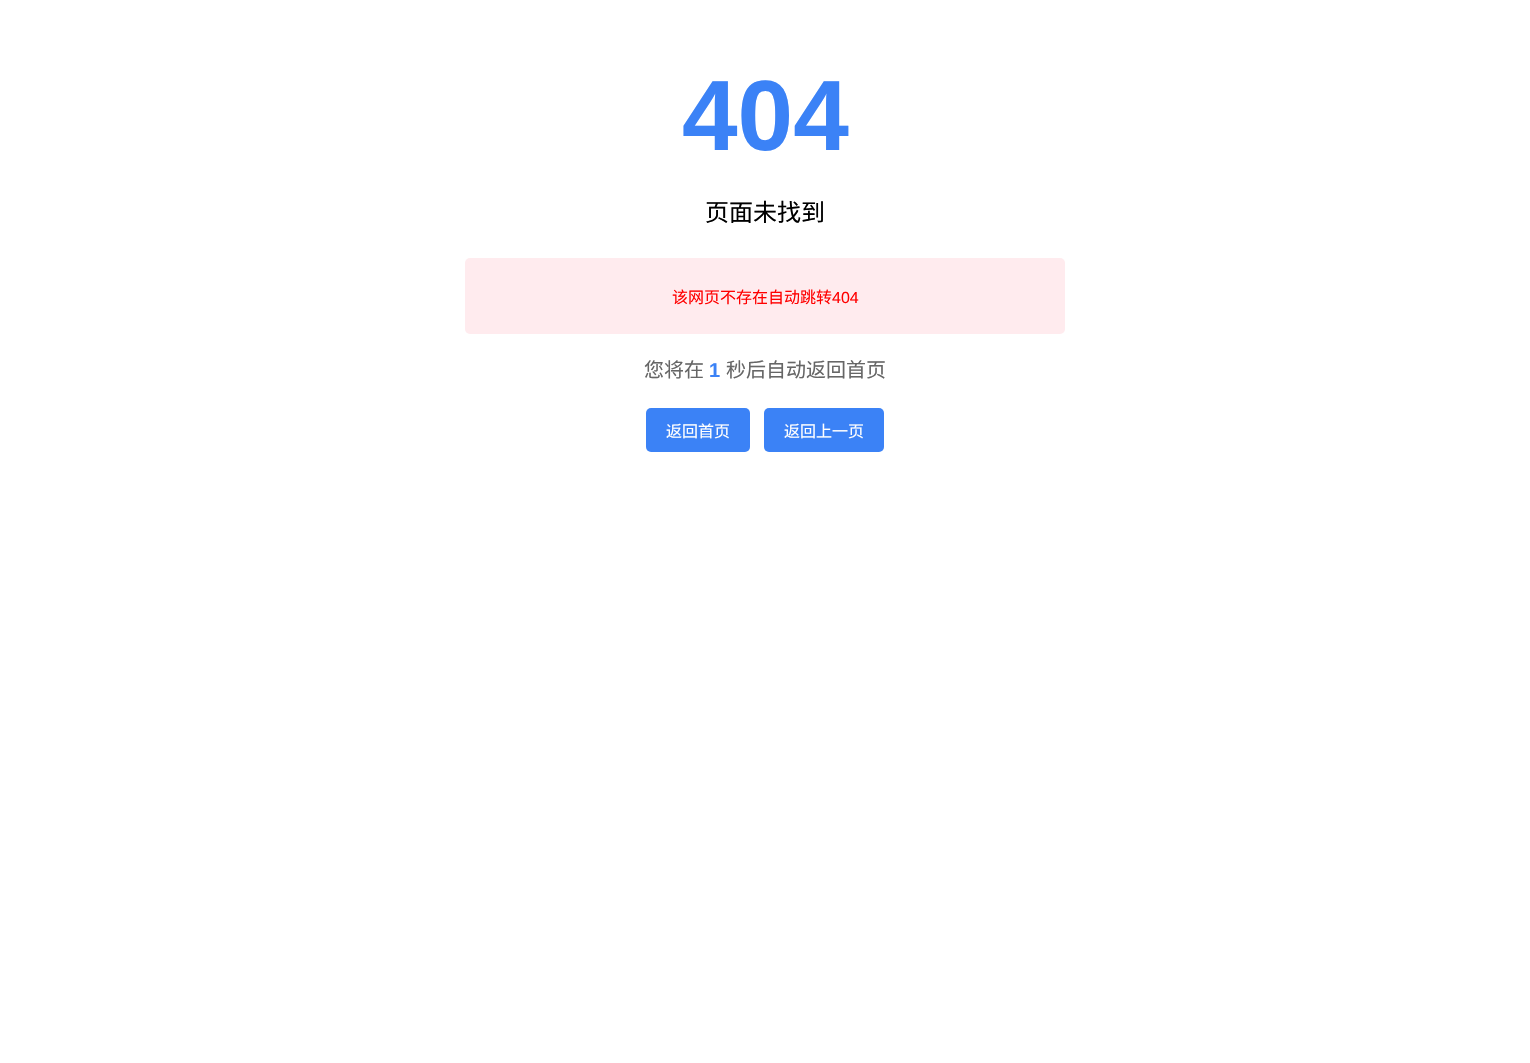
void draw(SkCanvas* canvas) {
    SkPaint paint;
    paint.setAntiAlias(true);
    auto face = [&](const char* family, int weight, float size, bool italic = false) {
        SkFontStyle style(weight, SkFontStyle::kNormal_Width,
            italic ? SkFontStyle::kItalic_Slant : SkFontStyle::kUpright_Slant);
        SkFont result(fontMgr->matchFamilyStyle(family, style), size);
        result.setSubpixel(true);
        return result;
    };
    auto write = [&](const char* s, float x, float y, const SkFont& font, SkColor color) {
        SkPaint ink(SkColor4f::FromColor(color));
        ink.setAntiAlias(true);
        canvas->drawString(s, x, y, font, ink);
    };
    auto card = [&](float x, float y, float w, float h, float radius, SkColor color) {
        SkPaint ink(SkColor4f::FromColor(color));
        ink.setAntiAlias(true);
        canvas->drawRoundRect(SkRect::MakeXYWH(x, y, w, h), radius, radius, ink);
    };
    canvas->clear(SK_ColorWHITE);
    auto kFont1 = face("Liberation Sans", 700, 100);
    write("404", 682, 150, kFont1, SkColorSetRGB(59, 130, 246));
    auto kFont2 = face("Noto Sans CJK SC", 400, 24);
    write("页面未找到", 705, 221, kFont2, SK_ColorBLACK);
    card(465, 258, 600, 76, 5, SkColorSetRGB(255, 235, 238));
    auto kFont3 = face("Noto Sans CJK SC", 400, 16);
    write("该网页不存在自动跳转", 672, 303, kFont3, SkColorSetRGB(255, 0, 0));
    auto kFont4 = face("Liberation Sans", 400, 16);
    write("404", 832, 303, kFont4, SkColorSetRGB(255, 0, 0));
    auto kFont5 = face("Noto Sans CJK SC", 400, 20);
    write("您将在", 644, 377, kFont5, SkColorSetRGB(102, 102, 102));
    auto kFont6 = face("Liberation Sans", 700, 20);
    write("1", 709, 377, kFont6, SkColorSetRGB(59, 130, 246));
    write("秒后自动返回首页", 726, 377, kFont5, SkColorSetRGB(102, 102, 102));
    card(646, 408, 104, 44, 5, SkColorSetRGB(59, 130, 246));
    write("返回首页", 666, 437, kFont3, SK_ColorWHITE);
    card(764, 408, 120, 44, 5, SkColorSetRGB(59, 130, 246));
    write("返回上一页", 784, 437, kFont3, SK_ColorWHITE);
}
